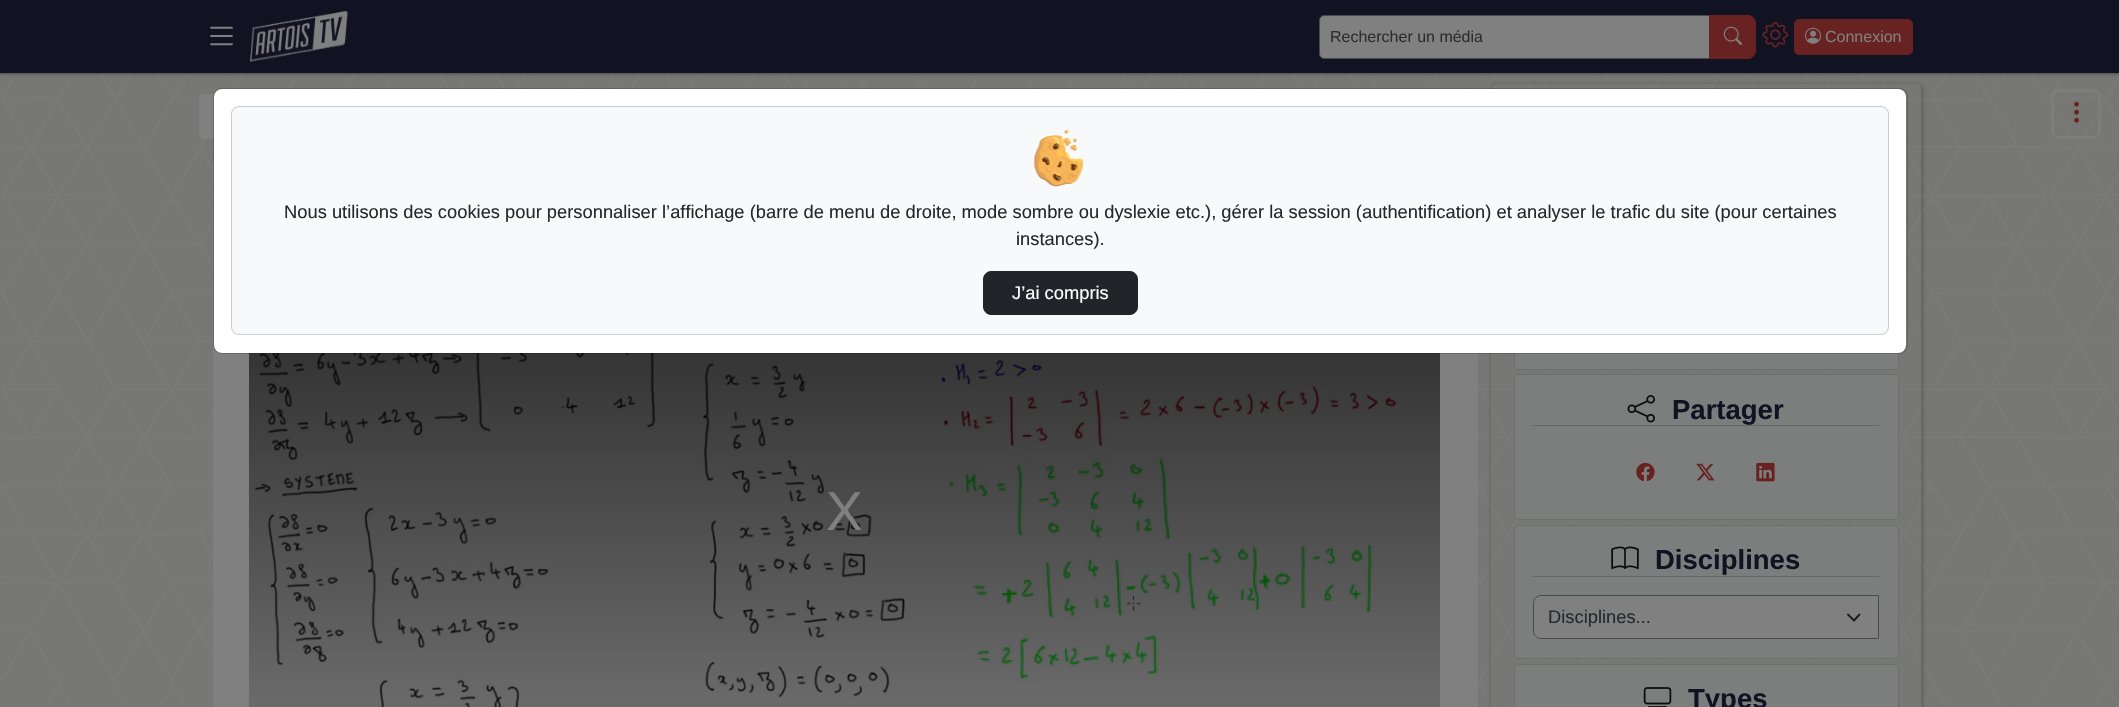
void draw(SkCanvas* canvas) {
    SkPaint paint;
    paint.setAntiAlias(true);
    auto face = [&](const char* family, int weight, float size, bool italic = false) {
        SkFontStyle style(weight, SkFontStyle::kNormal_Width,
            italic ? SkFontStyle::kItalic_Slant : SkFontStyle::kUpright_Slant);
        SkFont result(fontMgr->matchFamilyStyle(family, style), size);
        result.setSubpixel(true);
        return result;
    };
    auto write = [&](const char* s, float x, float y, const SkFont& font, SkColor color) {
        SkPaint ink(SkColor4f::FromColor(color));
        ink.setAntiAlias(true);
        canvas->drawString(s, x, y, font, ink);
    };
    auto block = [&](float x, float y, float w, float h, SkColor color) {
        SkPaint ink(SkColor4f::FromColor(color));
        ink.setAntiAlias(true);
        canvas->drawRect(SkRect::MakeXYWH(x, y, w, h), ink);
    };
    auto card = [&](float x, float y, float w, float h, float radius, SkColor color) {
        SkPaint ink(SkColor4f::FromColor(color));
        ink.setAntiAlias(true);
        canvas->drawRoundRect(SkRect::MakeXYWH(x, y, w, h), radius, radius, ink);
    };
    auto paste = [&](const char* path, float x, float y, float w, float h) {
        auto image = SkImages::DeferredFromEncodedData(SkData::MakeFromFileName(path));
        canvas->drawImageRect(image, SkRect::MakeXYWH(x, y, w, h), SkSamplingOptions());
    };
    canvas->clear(SK_ColorWHITE);
    paste("pic1.png", 0, 73, 2119, 634);
    paint.setColor(SkColorSetARGB(61, 0, 0, 0));
    paint.setMaskFilter(SkMaskFilter::MakeBlur(kNormal_SkBlurStyle, 1));
    canvas->drawRect(SkRect::MakeXYWH(0, 1, 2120, 73), paint);
    paint.setMaskFilter(nullptr);
    paint.setColor(SkColorSetARGB(31, 0, 0, 0));
    paint.setMaskFilter(SkMaskFilter::MakeBlur(kNormal_SkBlurStyle, 2));
    canvas->drawRect(SkRect::MakeXYWH(0, 1, 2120, 73), paint);
    paint.setMaskFilter(nullptr);
    block(0, 0, 2119, 73, SkColorSetRGB(17, 18, 34));
    paste("pic2.png", 210, 26, 23, 20);
    paste("pic3.png", 250, 11, 98, 51);
    paint.setColor(SkColorSetRGB(128, 128, 128));
    canvas->drawPath(SkPathBuilder().moveTo(1323, 16).lineTo(1709, 16).lineTo(1709, 58).lineTo(1323, 58).cubicTo(1321.5f, 58, 1320, 56.5f, 1320, 55).lineTo(1320, 19).cubicTo(1320, 17.5f, 1321.5f, 16, 1323, 16).close().detach(), paint);
    paint.setStyle(SkPaint::kStroke_Style);
    paint.setStrokeWidth(1);
    paint.setColor(SkColorSetRGB(71, 75, 79));
    canvas->drawPath(SkPathBuilder().moveTo(1324, 15.5f).lineTo(1709.5f, 15.5f).lineTo(1709.5f, 58.5f).lineTo(1324, 58.5f).cubicTo(1321.5f, 58.5f, 1319.5f, 56.5f, 1319.5f, 54).lineTo(1319.5f, 20).cubicTo(1319.5f, 17.5f, 1321.5f, 15.5f, 1324, 15.5f).close().detach(), paint);
    auto kFont1 = face("Liberation Sans", 400, 16);
    write("Rechercher un média", 1330, 42, kFont1, SkColorSetRGB(45, 46, 48));
    paint.setStyle(SkPaint::kFill_Style);
    paint.setColor(SkColorSetRGB(103, 34, 33));
    canvas->drawPath(SkPathBuilder().moveTo(1709.5f, 15.5f).lineTo(1748, 15.5f).cubicTo(1752, 15.5f, 1755.5f, 19, 1755.5f, 23).lineTo(1755.5f, 51).cubicTo(1755.5f, 55, 1752, 58.5f, 1748, 58.5f).lineTo(1709.5f, 58.5f).close().detach(), paint);
    paint.setStyle(SkPaint::kStroke_Style);
    canvas->drawPath(SkPathBuilder().moveTo(1709.5f, 15.5f).lineTo(1748, 15.5f).cubicTo(1752, 15.5f, 1755.5f, 19, 1755.5f, 23).lineTo(1755.5f, 51).cubicTo(1755.5f, 55, 1752, 58.5f, 1748, 58.5f).lineTo(1709.5f, 58.5f).close().detach(), paint);
    paste("pic4.png", 1723, 26, 20, 19);
    paste("pic5.png", 1762, 21, 27, 27);
    paint.setStyle(SkPaint::kFill_Style);
    canvas->drawRoundRect(SkRect::MakeXYWH(1794.5f, 19.5f, 118, 35), 4.5f, 4.5f, paint);
    paint.setStyle(SkPaint::kStroke_Style);
    canvas->drawRoundRect(SkRect::MakeXYWH(1794.5f, 19.5f, 118, 35), 4.5f, 4.5f, paint);
    paste("pic6.png", 1805, 27, 16, 17);
    write("Connexion", 1825, 42, kFont1, SkColorSetRGB(128, 128, 128));
    card(199, 94, 1242, 45, 5, SkColorSetRGB(128, 128, 128));
    card(213, 158, 1265, 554, 5, SkColorSetRGB(128, 128, 128));
    canvas->save();
    canvas->clipPath(SkPathBuilder(SkPathFillType::kEvenOdd).moveTo(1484, 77).lineTo(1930, 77).lineTo(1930, 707).lineTo(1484, 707).close().moveTo(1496, 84).lineTo(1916, 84).cubicTo(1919, 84, 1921, 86, 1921, 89).lineTo(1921, 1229).cubicTo(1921, 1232, 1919, 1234, 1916, 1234).lineTo(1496, 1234).cubicTo(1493, 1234, 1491, 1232, 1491, 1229).lineTo(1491, 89).cubicTo(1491, 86, 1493, 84, 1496, 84).close().detach(), true);
    paint.setStyle(SkPaint::kFill_Style);
    paint.setColor(SkColorSetARGB(51, 0, 0, 0));
    paint.setMaskFilter(SkMaskFilter::MakeBlur(kNormal_SkBlurStyle, 2));
    canvas->drawRoundRect(SkRect::MakeXYWH(1491, 84, 432, 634), 5, 5, paint);
    paint.setMaskFilter(nullptr);
    canvas->restore();
    card(1514, 176, 385, 194, 5, SkColorSetRGB(124, 125, 125));
    paint.setStyle(SkPaint::kStroke_Style);
    paint.setColor(SkColorSetARGB(31, 0, 0, 0));
    canvas->drawRoundRect(SkRect::MakeXYWH(1514.5f, 176.5f, 384, 193), 4.5f, 4.5f, paint);
    card(214, 89, 1692, 264, 8, SK_ColorWHITE);
    paste("pic9.png", 248, 353, 1, 354);
    paste("pic10.png", 248, 353, 1192, 354);
    paint.setStyle(SkPaint::kFill_Style);
    {
        const SkColor colors[] = {SkColorSetARGB(204, 0, 0, 0), SkColorSetARGB(0, 0, 0, 0)};
        const float stops[] = {0, 1};
        const SkPoint ends[] = {{844, 176}, {844, 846}};
        paint.setShader(SkGradientShader::MakeLinear(ends, colors, stops, 2, SkTileMode::kClamp));
        paint.setAlpha(255);
    }
    canvas->drawRect(SkRect::MakeXYWH(249, 353, 1191, 354), paint);
    paint.setStyle(SkPaint::kStroke_Style);
    paint.setShader(nullptr);
    paint.setColor(SkColorSetARGB(46, 0, 0, 0));
    canvas->drawRoundRect(SkRect::MakeXYWH(213.5f, 88.5f, 1694, 265), 8.5f, 8.5f, paint);
    card(231, 106, 1658, 229, 8, SkColorSetRGB(248, 249, 250));
    canvas->drawRoundRect(SkRect::MakeXYWH(231.5f, 106.5f, 1657, 228), 7.5f, 7.5f, paint);
    paste("pic7.png", 1033, 129, 51, 58);
    auto kFont2 = face("Liberation Sans", 400, 18.33f);
    write("Nous utilisons des cookies pour personnaliser l’affichage (barre de menu de droite, mode sombre ou dyslexie etc.), gérer la session (authentification) et analyser le trafic du site (pour certaines", 284, 218, kFont2, SkColorSetRGB(37, 40, 44));
    write("instances).", 1016, 245, kFont2, SkColorSetRGB(37, 40, 44));
    paint.setStyle(SkPaint::kFill_Style);
    paint.setColor(SkColorSetRGB(33, 37, 41));
    canvas->drawRoundRect(SkRect::MakeXYWH(983.5f, 271.5f, 154, 43), 7.5f, 7.5f, paint);
    paint.setStyle(SkPaint::kStroke_Style);
    canvas->drawRoundRect(SkRect::MakeXYWH(983.5f, 271.5f, 154, 43), 7.5f, 7.5f, paint);
    write("J’ai compris", 1012, 299, kFont2, SK_ColorWHITE);
    paint.setStrokeWidth(3);
    paint.setColor(SkColorSetRGB(124, 125, 125));
    canvas->drawRoundRect(SkRect::MakeXYWH(2052.5f, 90.5f, 47, 47), 6.5f, 6.5f, paint);
    paste("pic8.png", 2074, 101, 5, 22);
    auto kFont3 = face("Liberation Sans", 400, 55);
    write("X", 826, 530, kFont3, SkColorSetRGB(128, 128, 128));
    card(1514, 374, 385, 146, 5, SkColorSetRGB(124, 125, 125));
    paint.setStrokeWidth(1);
    paint.setColor(SkColorSetARGB(31, 0, 0, 0));
    canvas->drawRoundRect(SkRect::MakeXYWH(1514.5f, 374.5f, 384, 145), 4.5f, 4.5f, paint);
    paste("pic11.png", 1627, 395, 28, 28);
    auto kFont4 = face("Liberation Sans", 700, 27.5f);
    write("Partager", 1672, 419, kFont4, SkColorSetRGB(17, 18, 34));
    block(1533, 425, 346, 1, SkColorSetRGB(102, 102, 102));
    paste("pic12.png", 1636, 462, 19, 20);
    paste("pic13.png", 1696, 463, 19, 18);
    paste("pic14.png", 1756, 462, 19, 20);
    card(1514, 525, 385, 134, 5, SkColorSetRGB(124, 125, 125));
    canvas->drawRoundRect(SkRect::MakeXYWH(1514.5f, 525.5f, 384, 133), 4.5f, 4.5f, paint);
    paste("pic15.png", 1611, 546, 28, 24);
    write("Disciplines", 1655, 569, kFont4, SkColorSetRGB(17, 18, 34));
    block(1533, 576, 346, 1, SkColorSetRGB(102, 102, 102));
    paint.setStyle(SkPaint::kFill_Style);
    paint.setColor(SkColorSetRGB(128, 128, 128));
    canvas->drawPath(SkPathBuilder().moveTo(1541, 595).lineTo(1879, 595).lineTo(1879, 639).lineTo(1541, 639).cubicTo(1536.5f, 639, 1533, 635.5f, 1533, 631).lineTo(1533, 603).cubicTo(1533, 598.5f, 1536.5f, 595, 1541, 595).close().detach(), paint);
    paint.setStyle(SkPaint::kStroke_Style);
    paint.setStrokeWidth(1.9f);
    paint.setStrokeCap(SkPaint::kRound_Cap);
    paint.setStrokeJoin(SkPaint::kRound_Join);
    paint.setColor(SkColorSetRGB(26, 29, 32));
    canvas->drawPath(SkPathBuilder().moveTo(1848, 614.5f).lineTo(1854, 620.5f).lineTo(1859.5f, 614.5f).detach(), paint);
    paint.setStrokeWidth(1);
    paint.setStrokeCap(SkPaint::kButt_Cap);
    paint.setStrokeJoin(SkPaint::kMiter_Join);
    paint.setColor(SkColorSetRGB(71, 75, 79));
    canvas->drawPath(SkPathBuilder().moveTo(1541, 595.5f).lineTo(1878.5f, 595.5f).lineTo(1878.5f, 638.5f).lineTo(1541, 638.5f).cubicTo(1537, 638.5f, 1533.5f, 635, 1533.5f, 631).lineTo(1533.5f, 603).cubicTo(1533.5f, 599, 1537, 595.5f, 1541, 595.5f).close().detach(), paint);
    write("Disciplines...", 1548, 623, kFont2, SkColorSetRGB(37, 40, 44));
    card(1514, 664, 385, 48, 5, SkColorSetRGB(124, 125, 125));
    paint.setColor(SkColorSetARGB(31, 0, 0, 0));
    canvas->drawRoundRect(SkRect::MakeXYWH(1514.5f, 664.5f, 384, 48), 4.5f, 4.5f, paint);
    paste("pic16.png", 1643, 687, 29, 20);
    write("Types", 1688, 708, kFont4, SkColorSetRGB(17, 18, 34));
}
